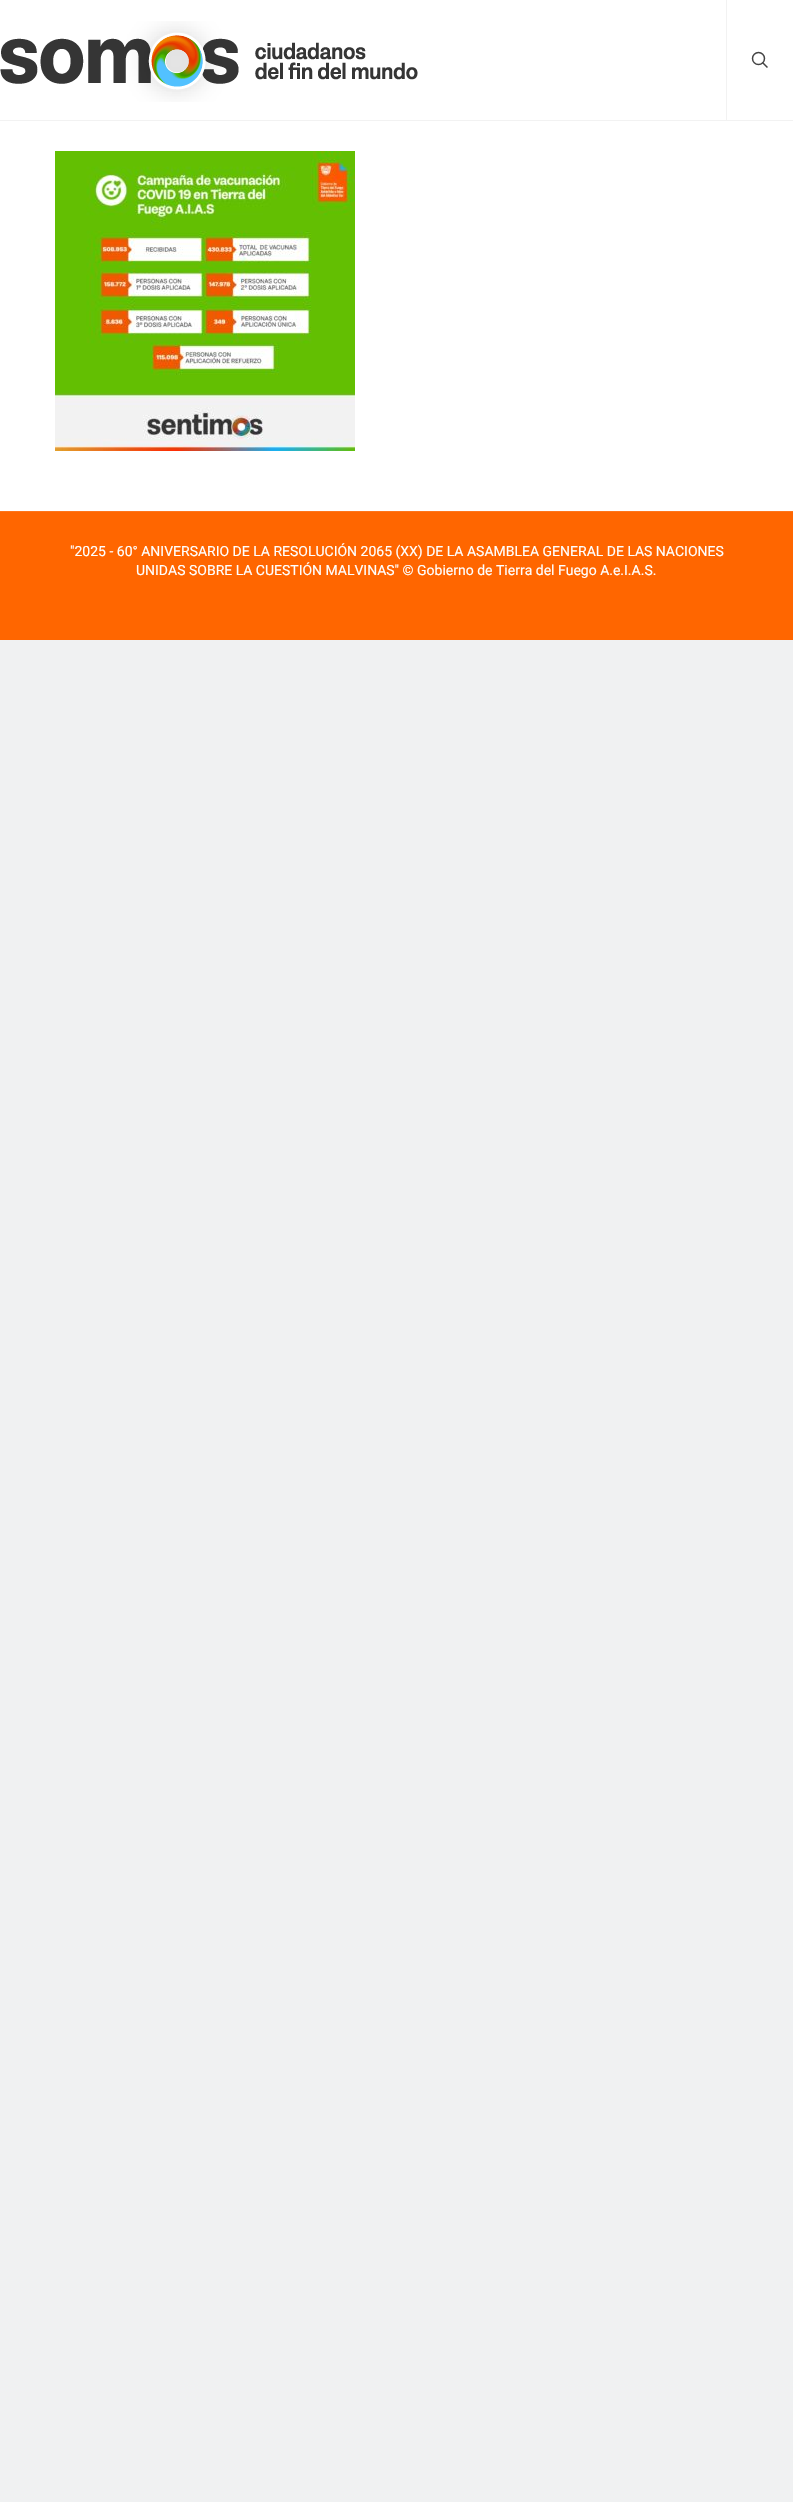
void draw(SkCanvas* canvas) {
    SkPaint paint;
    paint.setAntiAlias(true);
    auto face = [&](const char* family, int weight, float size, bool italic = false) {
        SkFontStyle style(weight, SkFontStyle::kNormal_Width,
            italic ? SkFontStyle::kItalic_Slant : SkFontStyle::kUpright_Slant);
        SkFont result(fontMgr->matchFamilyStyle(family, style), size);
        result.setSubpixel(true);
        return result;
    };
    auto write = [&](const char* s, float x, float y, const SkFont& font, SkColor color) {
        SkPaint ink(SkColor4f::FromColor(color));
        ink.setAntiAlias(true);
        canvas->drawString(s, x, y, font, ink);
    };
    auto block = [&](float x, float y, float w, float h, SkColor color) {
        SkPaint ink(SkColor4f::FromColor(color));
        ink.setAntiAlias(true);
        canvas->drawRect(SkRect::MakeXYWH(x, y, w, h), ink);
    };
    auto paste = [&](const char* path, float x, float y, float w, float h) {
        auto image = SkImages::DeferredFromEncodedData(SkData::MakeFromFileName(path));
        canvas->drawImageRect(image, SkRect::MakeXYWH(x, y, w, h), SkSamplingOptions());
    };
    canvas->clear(SkColorSetRGB(240, 241, 242));
    block(0, 0, 793, 511, SK_ColorWHITE);
    block(0, 120, 793, 1, SkColorSetRGB(242, 242, 242));
    paste("pic1.png", 0, 21, 418, 81);
    block(726, 0, 1, 120, SkColorSetRGB(242, 242, 242));
    paint.setStyle(SkPaint::kStroke_Style);
    paint.setStrokeWidth(1.5f);
    paint.setColor(SkColorSetRGB(68, 68, 68));
    canvas->drawCircle(758.5f, 58.5f, 6, paint);
    canvas->drawPath(SkPathBuilder().moveTo(762.5f, 62.5f).lineTo(767.5f, 67.5f).detach(), paint);
    paste("pic2.png", 55, 151, 300, 300);
    block(0, 512, 793, 128, SkColorSetRGB(255, 102, 0));
    block(0, 511, 793, 1, SkColorSetRGB(255, 117, 26));
    auto kFont1 = face("Roboto", 400, 14);
    write("\"2025 - 60° ANIVERSARIO DE LA RESOLUCIÓN 2065 (XX) DE LA ASAMBLEA GENERAL DE LAS NACIONES", 70, 556, kFont1, SK_ColorWHITE);
    write("UNIDAS SOBRE LA CUESTIÓN MALVINAS\" © Gobierno de Tierra del Fuego A.e.I.A.S.", 136, 575, kFont1, SK_ColorWHITE);
}
